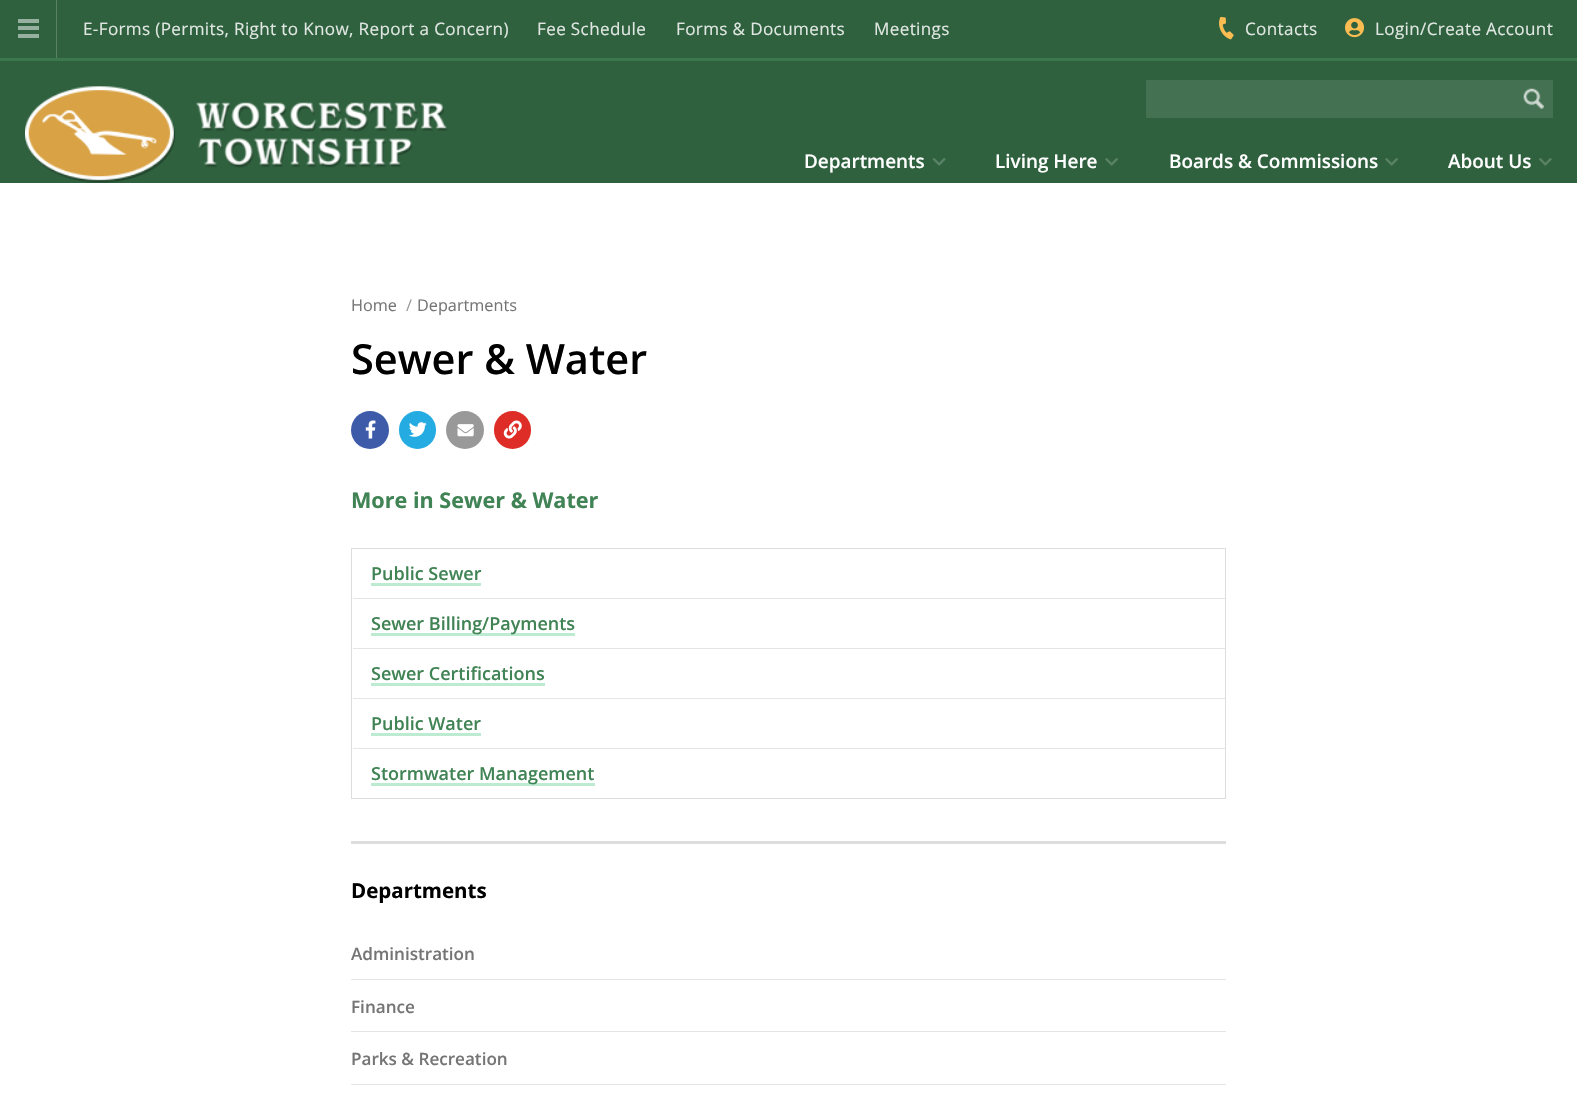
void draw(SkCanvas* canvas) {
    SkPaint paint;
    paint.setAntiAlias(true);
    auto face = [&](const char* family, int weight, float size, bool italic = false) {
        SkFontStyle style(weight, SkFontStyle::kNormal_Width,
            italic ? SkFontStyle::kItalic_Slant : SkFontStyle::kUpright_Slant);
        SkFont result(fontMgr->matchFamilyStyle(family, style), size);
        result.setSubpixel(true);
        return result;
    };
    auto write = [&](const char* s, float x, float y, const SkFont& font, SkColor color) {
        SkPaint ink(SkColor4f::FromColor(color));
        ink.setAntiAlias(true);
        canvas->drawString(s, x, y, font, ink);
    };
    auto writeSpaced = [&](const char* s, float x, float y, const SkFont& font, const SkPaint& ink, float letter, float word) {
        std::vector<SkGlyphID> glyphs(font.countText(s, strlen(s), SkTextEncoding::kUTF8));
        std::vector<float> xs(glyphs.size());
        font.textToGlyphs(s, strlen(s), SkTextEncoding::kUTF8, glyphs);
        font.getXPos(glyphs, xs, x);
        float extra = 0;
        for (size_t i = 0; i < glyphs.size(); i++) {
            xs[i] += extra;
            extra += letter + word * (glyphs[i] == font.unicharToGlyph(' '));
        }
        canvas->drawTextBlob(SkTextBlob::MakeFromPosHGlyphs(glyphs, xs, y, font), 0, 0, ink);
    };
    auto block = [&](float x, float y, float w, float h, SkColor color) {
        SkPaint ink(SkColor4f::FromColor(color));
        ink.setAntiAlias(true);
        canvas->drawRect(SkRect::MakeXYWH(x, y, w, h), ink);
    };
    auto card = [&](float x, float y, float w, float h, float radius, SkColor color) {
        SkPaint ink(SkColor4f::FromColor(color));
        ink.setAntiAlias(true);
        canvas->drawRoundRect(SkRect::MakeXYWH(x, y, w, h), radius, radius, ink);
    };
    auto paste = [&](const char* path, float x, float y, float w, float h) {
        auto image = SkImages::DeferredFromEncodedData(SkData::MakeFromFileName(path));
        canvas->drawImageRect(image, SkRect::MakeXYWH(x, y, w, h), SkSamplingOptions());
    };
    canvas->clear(SK_ColorWHITE);
    block(0, 0, 1577, 183, SkColorSetRGB(47, 97, 62));
    block(18, 26, 21, 4, SkColorSetRGB(151, 176, 159));
    block(18, 19, 21, 4, SkColorSetRGB(151, 176, 159));
    block(18, 34, 21, 4, SkColorSetRGB(151, 176, 159));
    block(56, 0, 1, 58, SkColorSetRGB(89, 129, 101));
    auto kFont1 = face("Open Sans", 400, 17.1f);
    paint.setColor(SkColorSetRGB(224, 231, 226));
    writeSpaced("E-Forms (Permits, Right to Know, Report a Concern)", 83, 35, kFont1, paint, 0.35f, 0);
    writeSpaced("Fee Schedule", 537, 35, kFont1, paint, 0.35f, 0);
    writeSpaced("Forms & Documents", 676, 35, kFont1, paint, 0.35f, 0);
    writeSpaced("Meetings", 874, 35, kFont1, paint, 0.35f, 0);
    paste("pic1.png", 1219, 16, 15, 24);
    writeSpaced("Contacts", 1245, 35, kFont1, paint, 0.35f, 0);
    paste("pic2.png", 1345, 18, 20, 20);
    writeSpaced("Login/Create Account", 1375, 35, kFont1, paint, 0.35f, 0);
    block(0, 58, 1577, 3, SkColorSetRGB(59, 121, 77));
    paste("pic3.png", 25, 86, 423, 97);
    block(1146, 80, 407, 38, SkColorSetRGB(68, 113, 81));
    paste("pic4.png", 1523, 88, 21, 21);
    auto kFont2 = face("Open Sans", 600, 18.9f);
    write("Departments", 804, 168, kFont2, SK_ColorWHITE);
    paste("pic5.png", 932, 158, 14, 8);
    write("Living Here", 995, 168, kFont2, SK_ColorWHITE);
    paste("pic6.png", 1105, 158, 13, 8);
    write("Boards & Commissions", 1169, 168, kFont2, SK_ColorWHITE);
    paste("pic6.png", 1385, 158, 13, 8);
    write("About Us", 1448, 168, kFont2, SK_ColorWHITE);
    paste("pic7.png", 1539, 158, 13, 8);
    auto kFont3 = face("Open Sans", 400, 16.25f);
    write("Home", 351, 311, kFont3, SkColorSetRGB(117, 117, 117));
    write("/", 406, 311, kFont3, SkColorSetRGB(153, 153, 153));
    write("Departments", 417, 311, kFont3, SkColorSetRGB(117, 117, 117));
    auto kFont4 = face("Open Sans", 600, 41.5f);
    write("Sewer & Water", 351, 374, kFont4, SK_ColorBLACK);
    paint.setColor(SkColorSetRGB(61, 91, 168));
    canvas->drawCircle(370, 430, 19, paint);
    paste("pic8.png", 365, 420, 11, 19);
    card(399, 411, 37, 38, 18.5f, SkColorSetRGB(36, 171, 226));
    paste("pic9.png", 409, 422, 18, 15);
    paint.setColor(SkColorSetRGB(153, 153, 153));
    canvas->drawCircle(465, 430, 19, paint);
    paste("pic10.png", 457, 424, 17, 13);
    card(494, 411, 37, 38, 18.5f, SkColorSetRGB(222, 44, 38));
    paste("pic11.png", 503, 420, 19, 19);
    auto kFont5 = face("Open Sans", 700, 21.6f);
    write("More in Sewer & Water", 351, 508, kFont5, SkColorSetRGB(64, 131, 84));
    paint.setStyle(SkPaint::kStroke_Style);
    paint.setStrokeWidth(1);
    paint.setColor(SkColorSetRGB(221, 221, 221));
    canvas->drawRect(SkRect::MakeXYWH(351.5f, 548.5f, 874, 250), paint);
    auto kFont6 = face("Open Sans", 600, 18);
    write("Public Sewer", 371, 580, kFont6, SkColorSetRGB(64, 131, 84));
    block(371, 583, 110, 3, SkColorSetRGB(188, 235, 209));
    block(353, 598, 872, 1, SkColorSetRGB(229, 229, 229));
    block(371, 633, 204, 3, SkColorSetRGB(188, 235, 209));
    write("Sewer Billing/Payments", 371, 630, kFont6, SkColorSetRGB(64, 131, 84));
    block(353, 648, 872, 1, SkColorSetRGB(229, 229, 229));
    write("Sewer Certifications", 371, 680, kFont6, SkColorSetRGB(64, 131, 84));
    block(371, 683, 174, 3, SkColorSetRGB(188, 235, 209));
    block(353, 698, 872, 1, SkColorSetRGB(229, 229, 229));
    write("Public Water", 371, 730, kFont6, SkColorSetRGB(64, 131, 84));
    block(371, 733, 110, 3, SkColorSetRGB(188, 235, 209));
    block(353, 748, 872, 1, SkColorSetRGB(229, 229, 229));
    block(371, 783, 224, 3, SkColorSetRGB(188, 235, 209));
    write("Stormwater Management", 371, 780, kFont6, SkColorSetRGB(64, 131, 84));
    block(351, 841, 875, 3, SkColorSetRGB(221, 221, 221));
    auto kFont7 = face("Open Sans", 700, 20.5f);
    write("Departments", 351, 898, kFont7, SK_ColorBLACK);
    auto kFont8 = face("Open Sans", 600, 17.1f);
    write("Administration", 351, 960, kFont8, SkColorSetRGB(117, 117, 117));
    block(351, 979, 875, 1, SkColorSetRGB(229, 229, 229));
    write("Finance", 351, 1013, kFont8, SkColorSetRGB(117, 117, 117));
    block(351, 1031, 875, 1, SkColorSetRGB(229, 229, 229));
    write("Parks & Recreation", 351, 1065, kFont8, SkColorSetRGB(117, 117, 117));
    block(351, 1084, 875, 1, SkColorSetRGB(229, 229, 229));
}
